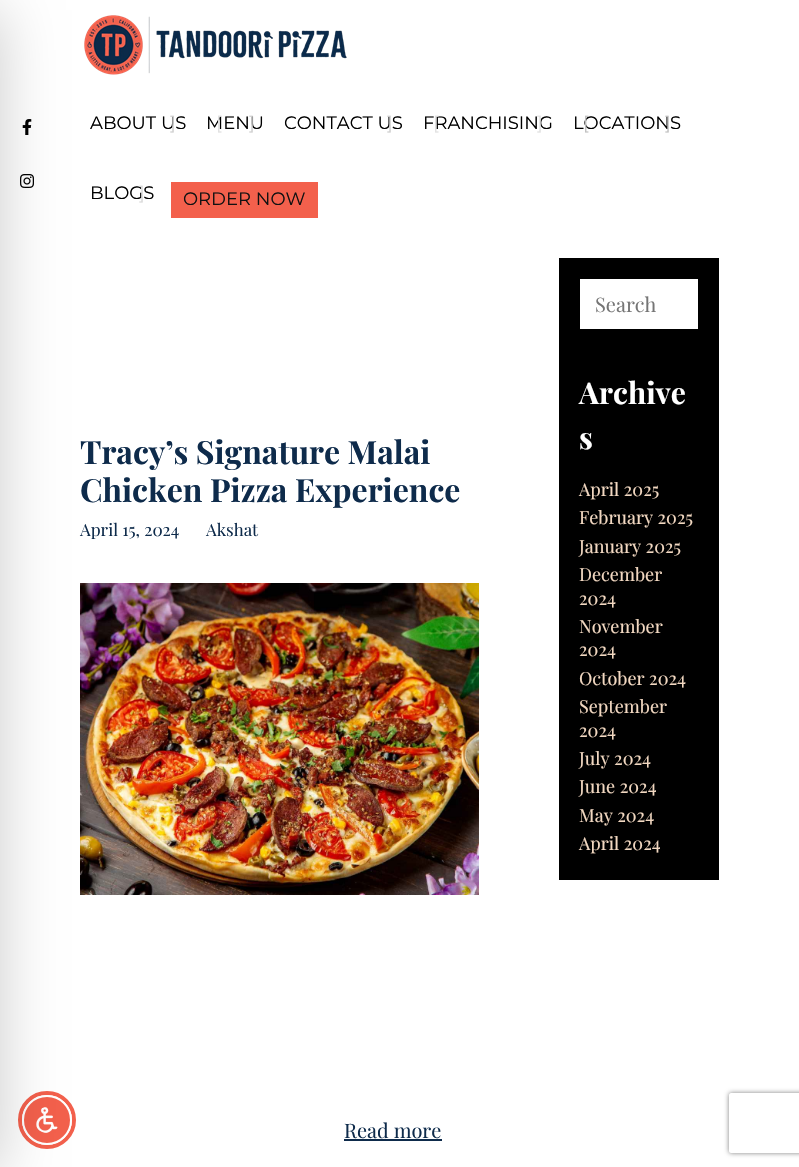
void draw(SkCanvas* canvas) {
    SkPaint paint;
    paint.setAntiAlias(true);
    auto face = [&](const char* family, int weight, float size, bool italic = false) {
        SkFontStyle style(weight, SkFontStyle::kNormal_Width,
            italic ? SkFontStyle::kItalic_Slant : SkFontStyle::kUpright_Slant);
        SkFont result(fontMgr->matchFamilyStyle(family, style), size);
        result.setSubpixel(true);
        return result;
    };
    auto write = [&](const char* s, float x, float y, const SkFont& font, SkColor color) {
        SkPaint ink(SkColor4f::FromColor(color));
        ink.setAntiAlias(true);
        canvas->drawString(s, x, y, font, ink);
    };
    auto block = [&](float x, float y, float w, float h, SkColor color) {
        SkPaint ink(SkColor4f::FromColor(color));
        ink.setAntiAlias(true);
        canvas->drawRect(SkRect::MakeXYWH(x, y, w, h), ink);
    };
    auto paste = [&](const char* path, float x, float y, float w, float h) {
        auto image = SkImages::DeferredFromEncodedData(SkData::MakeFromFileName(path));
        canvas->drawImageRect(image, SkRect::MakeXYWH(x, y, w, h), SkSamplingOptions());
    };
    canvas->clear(SK_ColorWHITE);
    paste("pic1.png", 84, 15, 263, 60);
    paste("pic2.png", 22, 119, 10, 16);
    paste("pic3.png", 20, 174, 14, 14);
    paint.setStyle(SkPaint::kStroke_Style);
    paint.setStrokeWidth(4);
    paint.setColor(SkColorSetRGB(243, 96, 76));
    canvas->drawCircle(47, 1120, 27, paint);
    paint.setStyle(SkPaint::kFill_Style);
    canvas->drawCircle(47, 1120, 24, paint);
    paint.setStyle(SkPaint::kStroke_Style);
    paint.setStrokeWidth(2);
    paint.setColor(SK_ColorWHITE);
    canvas->drawCircle(47, 1120, 24, paint);
    paste("pic4.png", 36, 1107, 22, 26);
    paste("pic5.png", 80, 583, 399, 312);
    paint.setStyle(SkPaint::kFill_Style);
    paint.setColor(SkColorSetARGB(51, 0, 0, 0));
    paint.setMaskFilter(SkMaskFilter::MakeBlur(kNormal_SkBlurStyle, 30));
    canvas->drawRect(SkRect::MakeXYWH(-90, 10, 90, 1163), paint);
    paint.setMaskFilter(nullptr);
    auto kFont1 = face("Montserrat", 400, 18);
    write("ABOUT US", 90, 129, kFont1, SK_ColorBLACK);
    write("]", 170, 129, kFont1, SkColorSetRGB(206, 206, 206));
    write("MENU", 206, 129, kFont1, SK_ColorBLACK);
    write("[", 216, 129, kFont1, SkColorSetRGB(225, 225, 225));
    write("]", 249, 129, kFont1, SkColorSetRGB(206, 206, 206));
    write("CONTACT US", 284, 129, kFont1, SK_ColorBLACK);
    write("]", 387, 129, kFont1, SkColorSetRGB(206, 206, 206));
    write("FRANCHISING", 423, 129, kFont1, SK_ColorBLACK);
    write("[", 433, 129, kFont1, SkColorSetRGB(225, 225, 225));
    write("]", 537, 129, kFont1, SkColorSetRGB(225, 225, 225));
    write("LOCATIONS", 573, 129, kFont1, SK_ColorBLACK);
    write("[", 583, 129, kFont1, SkColorSetRGB(191, 191, 191));
    write("]", 665, 129, kFont1, SkColorSetRGB(191, 191, 191));
    write("BLOGS", 90, 199, kFont1, SK_ColorBLACK);
    write("]", 139, 199, kFont1, SkColorSetRGB(216, 216, 216));
    block(171, 182, 147, 36, SkColorSetRGB(243, 96, 76));
    write("ORDER NOW", 183, 205, kFont1, SkColorSetRGB(17, 17, 17));
    auto kFont2 = face("Playfair Display", 700, 32);
    write("Tracy’s Signature Malai", 80, 464, kFont2, SkColorSetRGB(14, 43, 75));
    write("Chicken Pizza Experience", 80, 502, kFont2, SkColorSetRGB(14, 43, 75));
    auto kFont3 = face("Playfair Display", 400, 17);
    write("April 15, 2024", 80, 536, kFont3, SkColorSetRGB(14, 43, 75));
    write("Akshat", 206, 536, kFont3, SkColorSetRGB(14, 43, 75));
    auto kFont4 = face("Playfair Display", 400, 20);
    write("Read more", 344, 1138, kFont4, SkColorSetRGB(14, 43, 75));
    block(344, 1139, 98, 2, SkColorSetRGB(14, 43, 75));
    block(559, 258, 160, 622, SK_ColorBLACK);
    block(580, 279, 118, 50, SK_ColorWHITE);
    write("Search", 595, 312, kFont4, SkColorSetRGB(117, 117, 117));
    auto kFont5 = face("Playfair Display", 700, 30);
    write("Archive", 579, 404, kFont5, SK_ColorWHITE);
    write("s", 579, 449, kFont5, SK_ColorWHITE);
    auto kFont6 = face("Playfair Display", 400, 18);
    write("April 2025", 579, 496, kFont6, SkColorSetRGB(242, 216, 193));
    write("February 2025", 579, 524, kFont6, SkColorSetRGB(242, 216, 193));
    write("January 2025", 579, 553, kFont6, SkColorSetRGB(242, 216, 193));
    write("December", 579, 581, kFont6, SkColorSetRGB(242, 216, 193));
    write("2024", 579, 605, kFont6, SkColorSetRGB(242, 216, 193));
    write("November", 579, 633, kFont6, SkColorSetRGB(242, 216, 193));
    write("2024", 579, 656, kFont6, SkColorSetRGB(242, 216, 193));
    write("October 2024", 579, 685, kFont6, SkColorSetRGB(242, 216, 193));
    write("September", 579, 713, kFont6, SkColorSetRGB(242, 216, 193));
    write("2024", 579, 737, kFont6, SkColorSetRGB(242, 216, 193));
    write("July 2024", 579, 765, kFont6, SkColorSetRGB(242, 216, 193));
    write("June 2024", 579, 793, kFont6, SkColorSetRGB(242, 216, 193));
    write("May 2024", 579, 822, kFont6, SkColorSetRGB(242, 216, 193));
    write("April 2024", 579, 850, kFont6, SkColorSetRGB(242, 216, 193));
    canvas->save();
    canvas->clipPath(SkPathBuilder(SkPathFillType::kEvenOdd).moveTo(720, 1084).lineTo(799, 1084).lineTo(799, 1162).lineTo(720, 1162).close().moveTo(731, 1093).lineTo(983, 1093).cubicTo(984, 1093, 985, 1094, 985, 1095).lineTo(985, 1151).cubicTo(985, 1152, 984, 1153, 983, 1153).lineTo(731, 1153).cubicTo(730, 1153, 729, 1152, 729, 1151).lineTo(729, 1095).cubicTo(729, 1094, 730, 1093, 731, 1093).close().detach(), true);
    paint.setColor(SkColorSetRGB(128, 128, 128));
    paint.setMaskFilter(SkMaskFilter::MakeBlur(kNormal_SkBlurStyle, 2.5f));
    canvas->drawRoundRect(SkRect::MakeXYWH(729, 1093, 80, 60), 2, 2, paint);
    paint.setMaskFilter(nullptr);
    canvas->restore();
}
